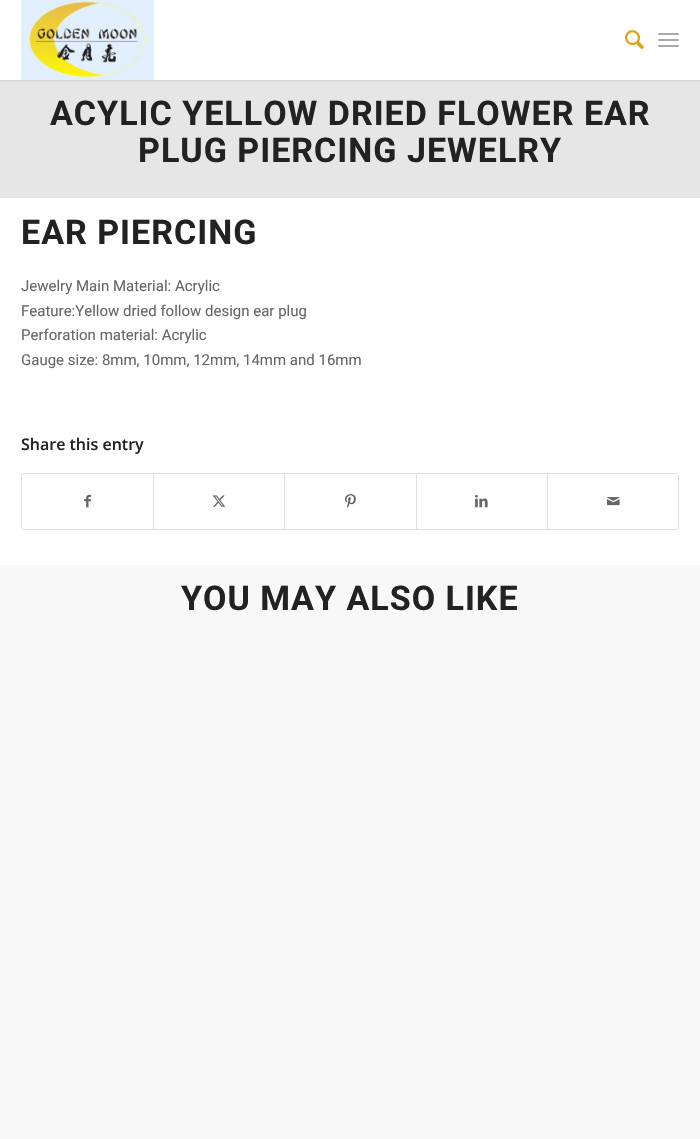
void draw(SkCanvas* canvas) {
    SkPaint paint;
    paint.setAntiAlias(true);
    auto face = [&](const char* family, int weight, float size, bool italic = false) {
        SkFontStyle style(weight, SkFontStyle::kNormal_Width,
            italic ? SkFontStyle::kItalic_Slant : SkFontStyle::kUpright_Slant);
        SkFont result(fontMgr->matchFamilyStyle(family, style), size);
        result.setSubpixel(true);
        return result;
    };
    auto write = [&](const char* s, float x, float y, const SkFont& font, SkColor color) {
        SkPaint ink(SkColor4f::FromColor(color));
        ink.setAntiAlias(true);
        canvas->drawString(s, x, y, font, ink);
    };
    auto writeSpaced = [&](const char* s, float x, float y, const SkFont& font, const SkPaint& ink, float letter, float word) {
        std::vector<SkGlyphID> glyphs(font.countText(s, strlen(s), SkTextEncoding::kUTF8));
        std::vector<float> xs(glyphs.size());
        font.textToGlyphs(s, strlen(s), SkTextEncoding::kUTF8, glyphs);
        font.getXPos(glyphs, xs, x);
        float extra = 0;
        for (size_t i = 0; i < glyphs.size(); i++) {
            xs[i] += extra;
            extra += letter + word * (glyphs[i] == font.unicharToGlyph(' '));
        }
        canvas->drawTextBlob(SkTextBlob::MakeFromPosHGlyphs(glyphs, xs, y, font), 0, 0, ink);
    };
    auto block = [&](float x, float y, float w, float h, SkColor color) {
        SkPaint ink(SkColor4f::FromColor(color));
        ink.setAntiAlias(true);
        canvas->drawRect(SkRect::MakeXYWH(x, y, w, h), ink);
    };
    auto card = [&](float x, float y, float w, float h, float radius, SkColor color) {
        SkPaint ink(SkColor4f::FromColor(color));
        ink.setAntiAlias(true);
        canvas->drawRoundRect(SkRect::MakeXYWH(x, y, w, h), radius, radius, ink);
    };
    auto paste = [&](const char* path, float x, float y, float w, float h) {
        auto image = SkImages::DeferredFromEncodedData(SkData::MakeFromFileName(path));
        canvas->drawImageRect(image, SkRect::MakeXYWH(x, y, w, h), SkSamplingOptions());
    };
    canvas->clear(SK_ColorWHITE);
    block(0, 80, 700, 118, SkColorSetRGB(230, 230, 230));
    paint.setColor(SkColorSetARGB(26, 0, 0, 0));
    paint.setMaskFilter(SkMaskFilter::MakeBlur(kNormal_SkBlurStyle, 1));
    canvas->drawRect(SkRect::MakeXYWH(-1, -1, 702, 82), paint);
    paint.setMaskFilter(nullptr);
    block(0, 0, 700, 80, SK_ColorWHITE);
    paste("pic1.png", 21, 0, 133, 80);
    paste("pic2.png", 625, 30, 19, 20);
    card(658, 39, 21, 2, 1, SkColorSetRGB(170, 170, 170));
    card(658, 33, 21, 2, 1, SkColorSetRGB(170, 170, 170));
    card(658, 45, 21, 2, 1, SkColorSetRGB(170, 170, 170));
    auto kFont1 = face("Roboto", 700, 34);
    paint.setColor(SkColorSetRGB(34, 34, 34));
    writeSpaced("ACYLIC YELLOW DRIED FLOWER EAR", 50, 125, kFont1, paint, 1, 0);
    writeSpaced("PLUG PIERCING JEWELRY", 138, 162, kFont1, paint, 1, 0);
    writeSpaced("EAR PIERCING", 21, 244, kFont1, paint, 1, 0);
    auto kFont2 = face("Roboto", 400, 15);
    write("Jewelry Main Material: Acrylic", 21, 291, kFont2, SkColorSetRGB(102, 102, 102));
    write("Feature:Yellow dried follow design ear plug", 21, 316, kFont2, SkColorSetRGB(102, 102, 102));
    write("Perforation material: Acrylic", 21, 340, kFont2, SkColorSetRGB(102, 102, 102));
    write("Gauge size: 8mm, 10mm, 12mm, 14mm and 16mm", 21, 365, kFont2, SkColorSetRGB(102, 102, 102));
    auto kFont3 = face("Open Sans", 600, 16);
    write("Share this entry", 21, 450, kFont3, SkColorSetRGB(34, 34, 34));
    paint.setStyle(SkPaint::kStroke_Style);
    paint.setStrokeWidth(1);
    paint.setColor(SkColorSetRGB(225, 225, 225));
    canvas->drawRoundRect(SkRect::MakeXYWH(21.5f, 473.5f, 657, 56), 2.5f, 2.5f, paint);
    paste("pic3.png", 84, 494, 7, 14);
    block(153, 474, 1, 55, SkColorSetRGB(225, 225, 225));
    paste("pic4.png", 212, 495, 14, 12);
    block(284, 474, 1, 55, SkColorSetRGB(225, 225, 225));
    paste("pic5.png", 345, 494, 11, 14);
    block(416, 474, 1, 55, SkColorSetRGB(225, 225, 225));
    paste("pic6.png", 475, 494, 13, 14);
    block(547, 474, 1, 55, SkColorSetRGB(225, 225, 225));
    paste("pic7.png", 607, 497, 13, 9);
    block(0, 565, 700, 574, SkColorSetRGB(248, 248, 248));
    paint.setStyle(SkPaint::kFill_Style);
    paint.setColor(SkColorSetRGB(34, 34, 34));
    writeSpaced("YOU MAY ALSO LIKE", 181, 610, kFont1, paint, 1, 0);
}
